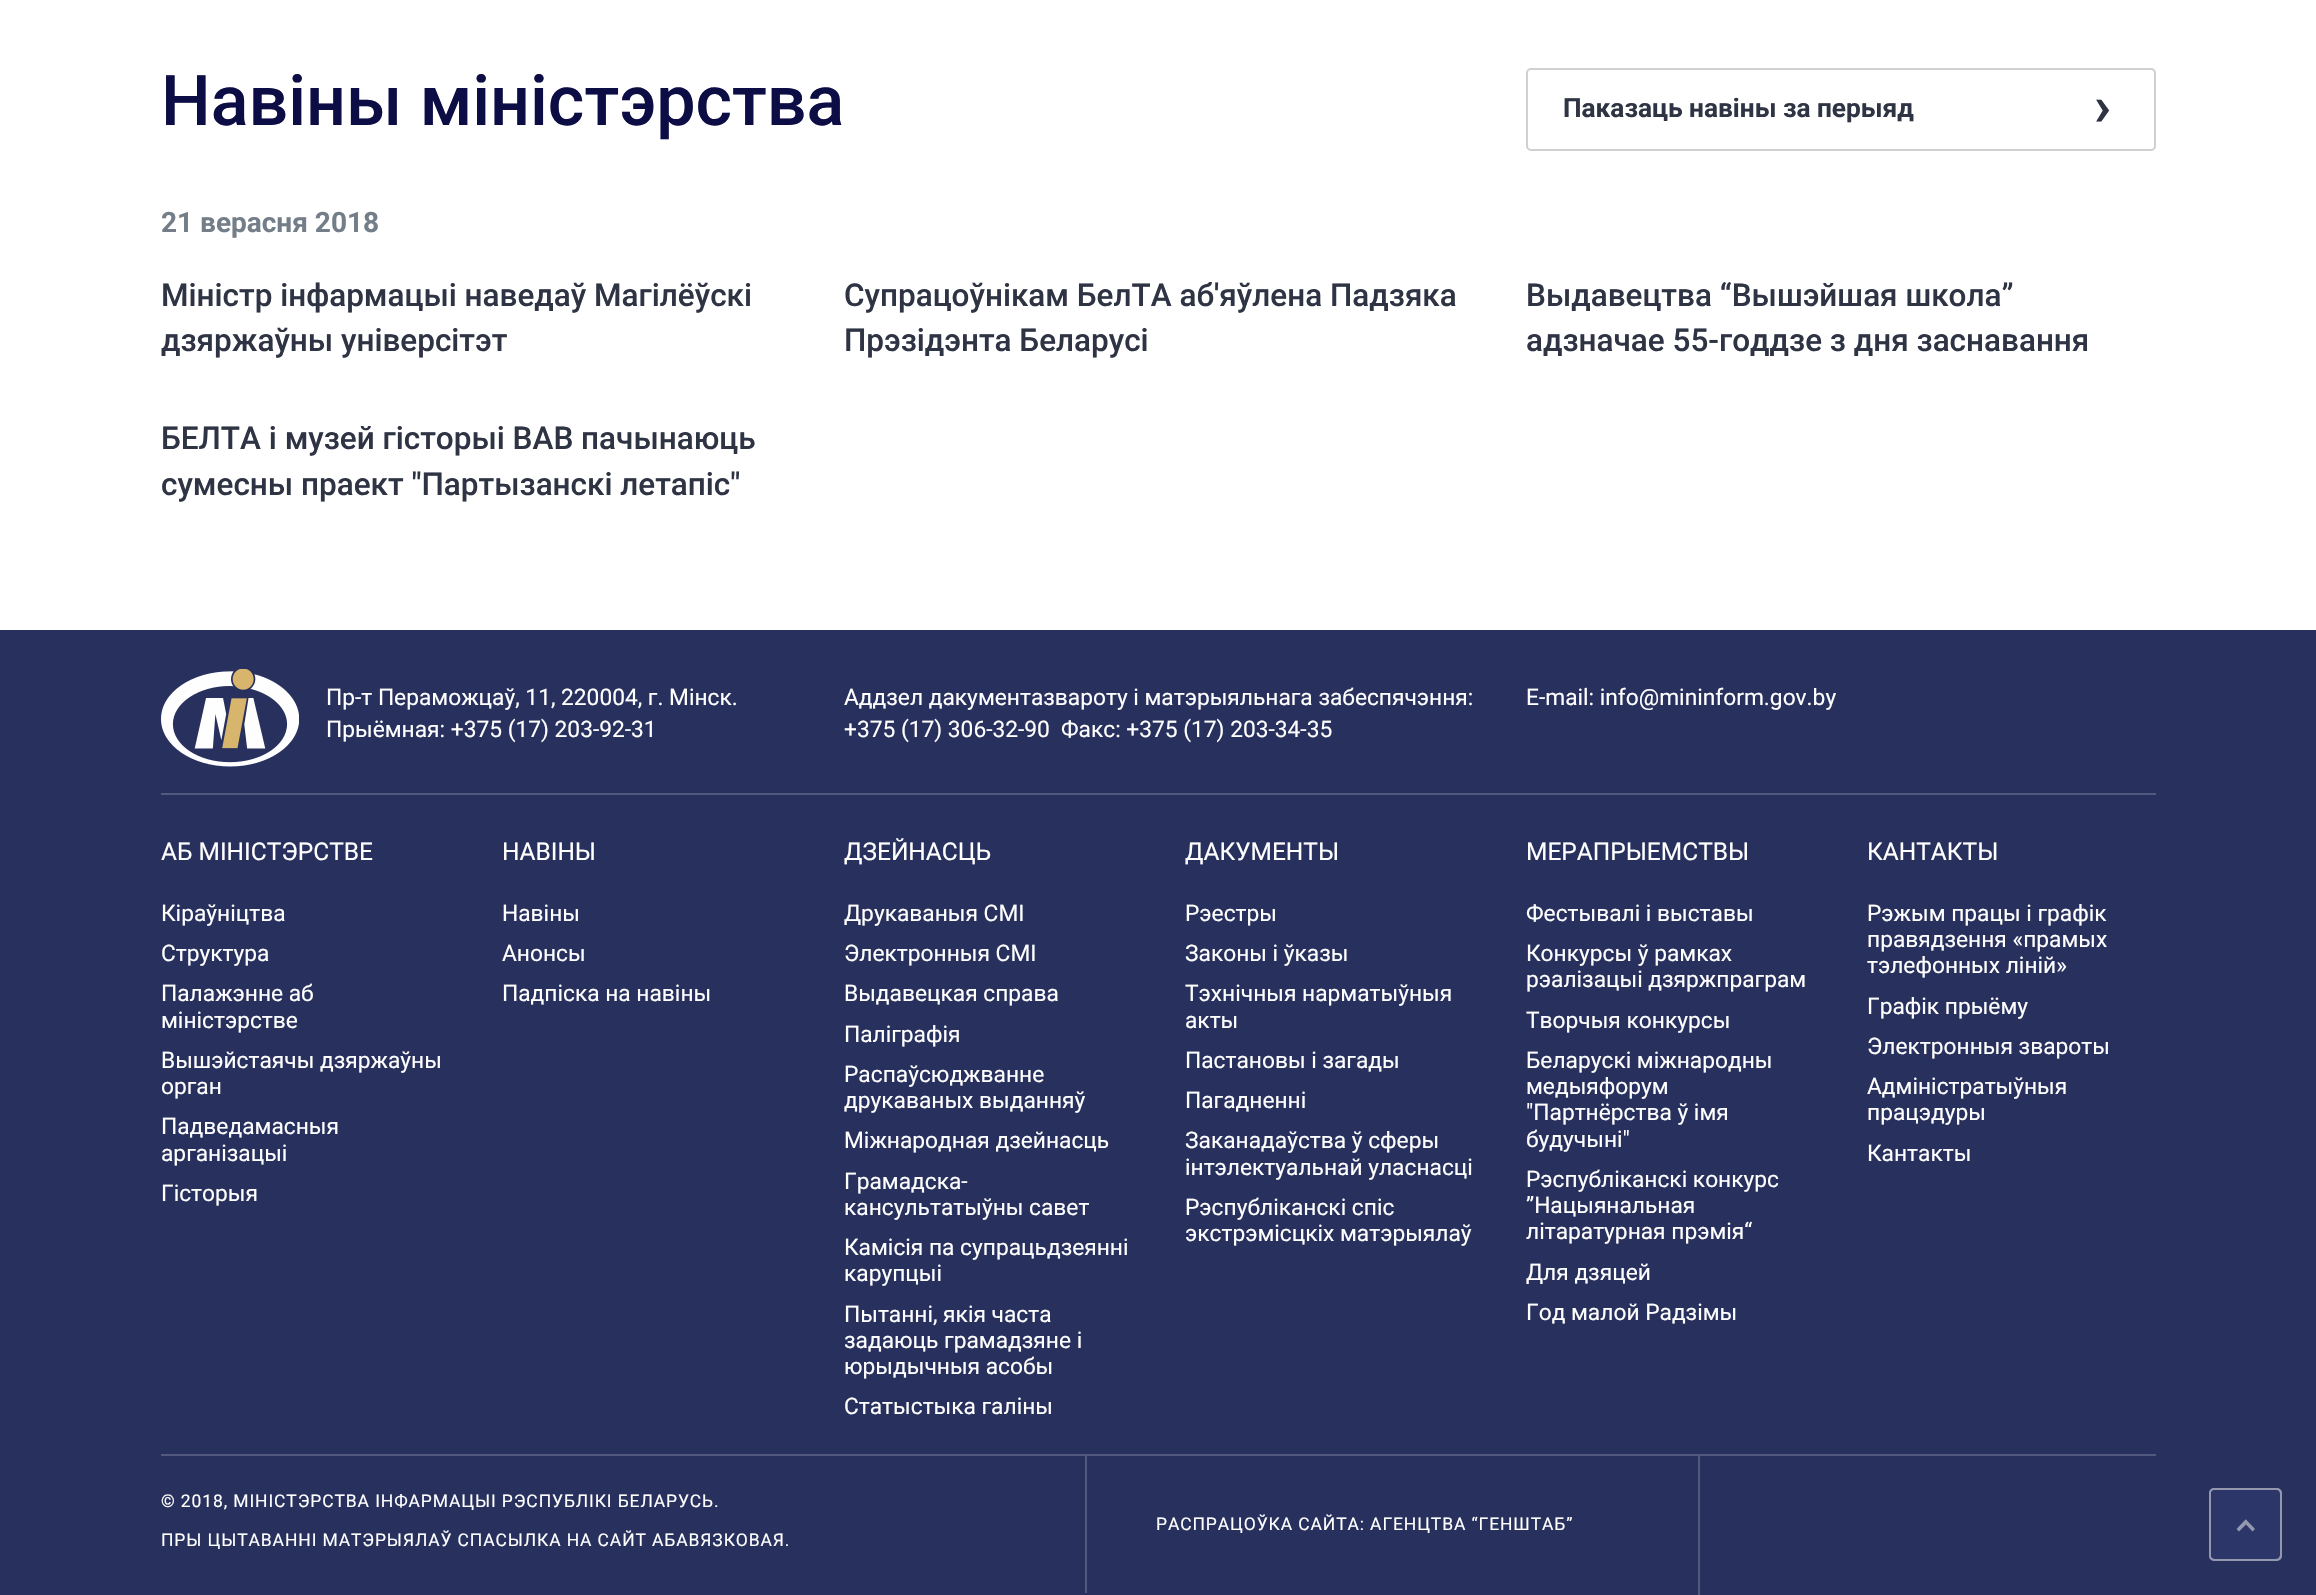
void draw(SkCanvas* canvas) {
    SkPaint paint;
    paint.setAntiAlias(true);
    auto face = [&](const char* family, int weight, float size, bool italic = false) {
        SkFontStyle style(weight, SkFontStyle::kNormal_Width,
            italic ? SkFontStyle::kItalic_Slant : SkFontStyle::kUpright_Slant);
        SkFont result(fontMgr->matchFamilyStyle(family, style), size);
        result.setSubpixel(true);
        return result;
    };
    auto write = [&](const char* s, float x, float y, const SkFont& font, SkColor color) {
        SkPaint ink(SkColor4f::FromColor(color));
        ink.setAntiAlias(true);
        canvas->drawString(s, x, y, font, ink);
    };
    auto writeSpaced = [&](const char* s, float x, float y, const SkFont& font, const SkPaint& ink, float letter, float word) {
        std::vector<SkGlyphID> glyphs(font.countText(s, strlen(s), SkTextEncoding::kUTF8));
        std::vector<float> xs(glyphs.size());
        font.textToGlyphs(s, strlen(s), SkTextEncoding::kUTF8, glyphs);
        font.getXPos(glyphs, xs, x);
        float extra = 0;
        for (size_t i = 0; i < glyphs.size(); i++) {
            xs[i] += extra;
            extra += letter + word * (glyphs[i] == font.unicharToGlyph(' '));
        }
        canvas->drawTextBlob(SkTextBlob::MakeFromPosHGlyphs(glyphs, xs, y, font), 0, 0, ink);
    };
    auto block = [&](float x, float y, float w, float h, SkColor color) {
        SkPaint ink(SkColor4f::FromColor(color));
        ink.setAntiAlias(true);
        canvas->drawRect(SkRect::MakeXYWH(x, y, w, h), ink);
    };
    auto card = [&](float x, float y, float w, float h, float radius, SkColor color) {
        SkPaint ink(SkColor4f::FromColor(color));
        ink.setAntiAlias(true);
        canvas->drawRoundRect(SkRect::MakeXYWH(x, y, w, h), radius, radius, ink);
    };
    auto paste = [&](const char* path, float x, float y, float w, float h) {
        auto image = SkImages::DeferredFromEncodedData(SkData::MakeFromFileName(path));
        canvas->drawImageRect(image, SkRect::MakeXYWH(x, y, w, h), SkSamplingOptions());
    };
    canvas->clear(SK_ColorWHITE);
    auto kFont1 = face("Roboto", 500, 70);
    write("Навіны міністэрства", 161, 125, kFont1, SkColorSetRGB(13, 13, 70));
    paint.setStyle(SkPaint::kStroke_Style);
    paint.setStrokeWidth(2);
    paint.setColor(SkColorSetRGB(208, 208, 208));
    canvas->drawRoundRect(SkRect::MakeXYWH(1527, 69, 628, 81), 4, 4, paint);
    auto kFont2 = face("Roboto", 700, 26.25f);
    write("Паказаць навіны за перыяд", 1563, 117, kFont2, SkColorSetRGB(47, 52, 68));
    auto kFont3 = face("Roboto", 700, 56);
    write("›", 2094, 125, kFont3, SkColorSetRGB(47, 52, 68));
    auto kFont4 = face("Roboto", 700, 28);
    write("21 верасня 2018", 161, 232, kFont4, SkColorSetRGB(116, 126, 137));
    auto kFont5 = face("Roboto", 500, 31.5f);
    write("Міністр інфармацыі наведаў Магілёўскі", 161, 306, kFont5, SkColorSetRGB(47, 52, 68));
    write("дзяржаўны універсітэт", 161, 351, kFont5, SkColorSetRGB(47, 52, 68));
    write("Супрацоўнікам БелТА аб'яўлена Падзяка", 844, 306, kFont5, SkColorSetRGB(47, 52, 68));
    write("Прэзідэнта Беларусі", 844, 351, kFont5, SkColorSetRGB(47, 52, 68));
    write("Выдавецтва “Вышэйшая школа”", 1526, 306, kFont5, SkColorSetRGB(47, 52, 68));
    write("адзначае 55-годдзе з дня заснавання", 1526, 351, kFont5, SkColorSetRGB(47, 52, 68));
    write("БЕЛТА і музей гісторыі ВАВ пачынаюць", 161, 449, kFont5, SkColorSetRGB(47, 52, 68));
    write("сумесны праект \"Партызанскі летапіс\"", 161, 495, kFont5, SkColorSetRGB(47, 52, 68));
    block(0, 630, 2316, 965, SkColorSetRGB(40, 48, 94));
    paste("pic1.png", 161, 669, 138, 98);
    auto kFont6 = face("Roboto", 400, 22.75f);
    write("Пр-т Пераможцаў, 11, 220004, г. Мінск.", 326, 705, kFont6, SK_ColorWHITE);
    write("Прыёмная: +375 (17) 203-92-31", 326, 737, kFont6, SK_ColorWHITE);
    write("Аддзел дакументазвароту і матэрыяльнага забеспячэння:", 844, 705, kFont6, SK_ColorWHITE);
    write("+375 (17) 306-32-90", 844, 737, kFont6, SK_ColorWHITE);
    write("Факс: +375 (17) 203-34-35", 1061, 737, kFont6, SK_ColorWHITE);
    write("E-mail: info@mininform.gov.by", 1526, 705, kFont6, SK_ColorWHITE);
    block(161, 793, 1995, 2, SkColorSetRGB(83, 89, 126));
    auto kFont7 = face("Roboto", 400, 24.5f);
    write("АБ МІНІСТЭРСТВЕ", 161, 860, kFont7, SK_ColorWHITE);
    write("Кіраўніцтва", 161, 921, kFont6, SK_ColorWHITE);
    write("Структура", 161, 961, kFont6, SK_ColorWHITE);
    write("Палажэнне аб", 161, 1001, kFont6, SK_ColorWHITE);
    write("міністэрстве", 161, 1028, kFont6, SK_ColorWHITE);
    write("Вышэйстаячы дзяржаўны", 161, 1068, kFont6, SK_ColorWHITE);
    write("орган", 161, 1094, kFont6, SK_ColorWHITE);
    write("Падведамасныя", 161, 1134, kFont6, SK_ColorWHITE);
    write("арганізацыі", 161, 1161, kFont6, SK_ColorWHITE);
    write("Гісторыя", 161, 1201, kFont6, SK_ColorWHITE);
    write("НАВІНЫ", 502, 860, kFont7, SK_ColorWHITE);
    write("Навіны", 502, 921, kFont6, SK_ColorWHITE);
    write("Анонсы", 502, 961, kFont6, SK_ColorWHITE);
    write("Падпіска на навіны", 502, 1001, kFont6, SK_ColorWHITE);
    write("ДЗЕЙНАСЦЬ", 844, 860, kFont7, SK_ColorWHITE);
    write("Друкаваныя СМI", 844, 921, kFont6, SK_ColorWHITE);
    write("Электронныя СМI", 844, 961, kFont6, SK_ColorWHITE);
    write("Выдавецкая справа", 844, 1001, kFont6, SK_ColorWHITE);
    write("Паліграфія", 844, 1042, kFont6, SK_ColorWHITE);
    write("Распаўсюджванне", 844, 1082, kFont6, SK_ColorWHITE);
    write("друкаваных выданняў", 844, 1108, kFont6, SK_ColorWHITE);
    write("Міжнародная дзейнасць", 844, 1148, kFont6, SK_ColorWHITE);
    write("Грамадска-", 844, 1189, kFont6, SK_ColorWHITE);
    write("кансультатыўны савет", 844, 1215, kFont6, SK_ColorWHITE);
    write("Камісія па супрацьдзеянні", 844, 1255, kFont6, SK_ColorWHITE);
    write("карупцыі", 844, 1281, kFont6, SK_ColorWHITE);
    write("Пытанні, якія часта", 844, 1322, kFont6, SK_ColorWHITE);
    write("задаюць грамадзяне і", 844, 1348, kFont6, SK_ColorWHITE);
    write("юрыдычныя асобы", 844, 1374, kFont6, SK_ColorWHITE);
    write("Статыстыка галіны", 844, 1414, kFont6, SK_ColorWHITE);
    write("ДАКУМЕНТЫ", 1185, 860, kFont7, SK_ColorWHITE);
    write("Рэестры", 1185, 921, kFont6, SK_ColorWHITE);
    write("Законы і ўказы", 1185, 961, kFont6, SK_ColorWHITE);
    write("Тэхнічныя нарматыўныя", 1185, 1001, kFont6, SK_ColorWHITE);
    write("акты", 1185, 1028, kFont6, SK_ColorWHITE);
    write("Пастановы і загады", 1185, 1068, kFont6, SK_ColorWHITE);
    write("Пагадненні", 1185, 1108, kFont6, SK_ColorWHITE);
    write("Заканадаўства ў сферы", 1185, 1148, kFont6, SK_ColorWHITE);
    write("інтэлектуальнай уласнасці", 1185, 1175, kFont6, SK_ColorWHITE);
    write("Рэспубліканскі спіс", 1185, 1215, kFont6, SK_ColorWHITE);
    write("экстрэмісцкіх матэрыялаў", 1185, 1241, kFont6, SK_ColorWHITE);
    write("МЕРАПРЫЕМСТВЫ", 1526, 860, kFont7, SK_ColorWHITE);
    write("Фестывалі і выставы", 1526, 921, kFont6, SK_ColorWHITE);
    write("Конкурсы ў рамках", 1526, 961, kFont6, SK_ColorWHITE);
    write("рэалізацыі дзяржпраграм", 1526, 987, kFont6, SK_ColorWHITE);
    write("Творчыя конкурсы", 1526, 1028, kFont6, SK_ColorWHITE);
    write("Беларускі міжнародны", 1526, 1068, kFont6, SK_ColorWHITE);
    write("медыяфорум", 1526, 1094, kFont6, SK_ColorWHITE);
    write("\"Партнёрства ў імя", 1526, 1120, kFont6, SK_ColorWHITE);
    write("будучыні\"", 1526, 1147, kFont6, SK_ColorWHITE);
    write("Рэспубліканскі конкурс", 1526, 1187, kFont6, SK_ColorWHITE);
    write("”Нацыянальная", 1526, 1213, kFont6, SK_ColorWHITE);
    write("літаратурная прэмія“", 1526, 1239, kFont6, SK_ColorWHITE);
    write("Для дзяцей", 1526, 1280, kFont6, SK_ColorWHITE);
    write("Год малой Радзімы", 1526, 1320, kFont6, SK_ColorWHITE);
    write("КАНТАКТЫ", 1867, 860, kFont7, SK_ColorWHITE);
    write("Рэжым працы і графік", 1867, 921, kFont6, SK_ColorWHITE);
    write("правядзення «прамых", 1867, 947, kFont6, SK_ColorWHITE);
    write("тэлефонных ліній»", 1867, 973, kFont6, SK_ColorWHITE);
    write("Графік прыёму", 1867, 1014, kFont6, SK_ColorWHITE);
    write("Электронныя звароты", 1867, 1054, kFont6, SK_ColorWHITE);
    write("Адміністратыўныя", 1867, 1094, kFont6, SK_ColorWHITE);
    write("працэдуры", 1867, 1120, kFont6, SK_ColorWHITE);
    write("Кантакты", 1867, 1161, kFont6, SK_ColorWHITE);
    block(161, 1454, 1995, 2, SkColorSetRGB(83, 89, 126));
    auto kFont8 = face("Roboto", 400, 17.5f);
    paint.setStyle(SkPaint::kFill_Style);
    paint.setColor(SK_ColorWHITE);
    writeSpaced("© 2018, МІНІСТЭРСТВА ІНФАРМАЦЫІ РЭСПУБЛІКІ БЕЛАРУСЬ.", 161, 1507, kFont8, paint, 0.88f, 0);
    writeSpaced("ПРЫ ЦЫТАВАННІ МАТЭРЫЯЛАЎ СПАСЫЛКА НА САЙТ АБАВЯЗКОВАЯ.", 161, 1546, kFont8, paint, 0.88f, 0);
    block(1085, 1456, 2, 137, SkColorSetRGB(83, 89, 126));
    writeSpaced("РАСПРАЦОЎКА САЙТА: АГЕНЦТВА “ГЕНШТАБ”", 1156, 1530, kFont8, paint, 0.88f, 0);
    block(1698, 1456, 2, 139, SkColorSetRGB(83, 89, 126));
    card(2209, 1488, 73, 73, 5, SkColorSetRGB(44, 54, 104));
    canvas->save();
    canvas->clipPath(SkPathBuilder().moveTo(2214, 1488).lineTo(2277, 1488).cubicTo(2280, 1488, 2282, 1490, 2282, 1493).lineTo(2282, 1556).cubicTo(2282, 1559, 2280, 1561, 2277, 1561).lineTo(2214, 1561).cubicTo(2211, 1561, 2209, 1559, 2209, 1556).lineTo(2209, 1493).cubicTo(2209, 1490, 2211, 1488, 2214, 1488).close().detach(), true);
    paint.setStyle(SkPaint::kStroke_Style);
    paint.setStrokeWidth(1.8f);
    paint.setColor(SkColorSetRGB(142, 148, 173));
    canvas->drawPath(SkPathBuilder().moveTo(2209.5f, 1554).lineTo(2209.5f, 1494.5f).cubicTo(2209.5f, 1491, 2212, 1488.5f, 2215.5f, 1488.5f).lineTo(2275, 1488.5f).cubicTo(2278.5f, 1488.5f, 2281, 1491, 2281, 1494.5f).lineTo(2281, 1554).cubicTo(2281, 1557.5f, 2278.5f, 1560, 2275, 1560).lineTo(2215.5f, 1560).cubicTo(2212, 1560, 2209.5f, 1557.5f, 2209.5f, 1554).close().detach(), paint);
    canvas->restore();
    paint.setStyle(SkPaint::kFill_Style);
    paint.setColor(SkColorSetRGB(148, 152, 175));
    canvas->drawPath(SkPathBuilder(SkPathFillType::kEvenOdd).moveTo(2245.5f, 1519.5f).lineTo(2236.5f, 1529).lineTo(2239, 1531.5f).lineTo(2246, 1524.5f).lineTo(2252.5f, 1531.5f).lineTo(2255, 1529).lineTo(2246, 1519.5f).close().detach(), paint);
    paint.setStyle(SkPaint::kStroke_Style);
    paint.setStrokeWidth(2);
    canvas->drawRoundRect(SkRect::MakeXYWH(2210, 1489, 71, 71), 4, 4, paint);
}
